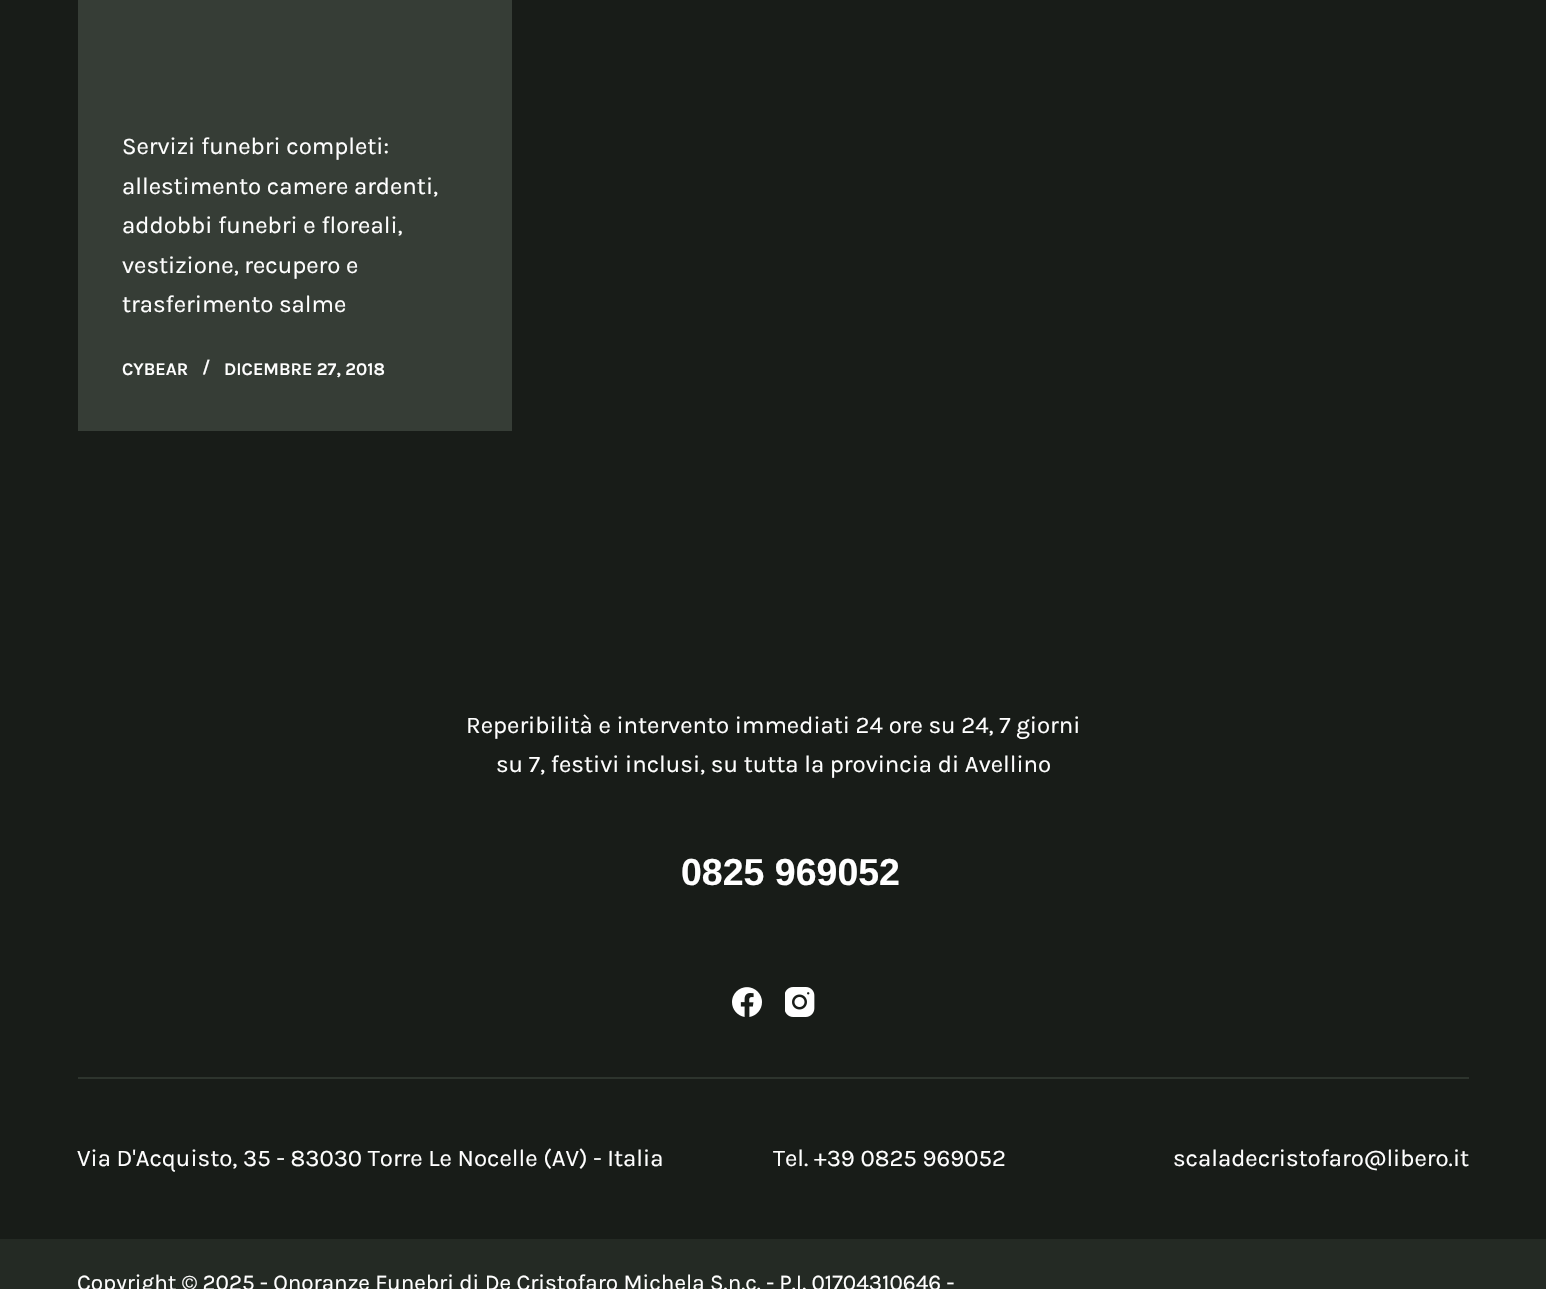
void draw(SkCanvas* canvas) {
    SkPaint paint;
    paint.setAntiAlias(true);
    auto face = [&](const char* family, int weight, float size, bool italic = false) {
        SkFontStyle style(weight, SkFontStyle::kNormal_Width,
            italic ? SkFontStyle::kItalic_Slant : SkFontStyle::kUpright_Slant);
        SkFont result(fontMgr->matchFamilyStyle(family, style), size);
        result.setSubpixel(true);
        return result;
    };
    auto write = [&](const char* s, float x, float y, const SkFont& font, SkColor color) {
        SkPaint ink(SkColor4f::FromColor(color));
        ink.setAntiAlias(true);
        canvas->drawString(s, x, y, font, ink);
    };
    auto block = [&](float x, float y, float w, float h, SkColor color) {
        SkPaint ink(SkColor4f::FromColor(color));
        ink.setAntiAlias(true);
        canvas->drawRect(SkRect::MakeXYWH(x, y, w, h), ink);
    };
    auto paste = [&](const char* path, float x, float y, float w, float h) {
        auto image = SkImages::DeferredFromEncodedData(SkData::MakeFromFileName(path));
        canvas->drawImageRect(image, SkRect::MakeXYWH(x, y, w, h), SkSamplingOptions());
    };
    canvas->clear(SkColorSetRGB(24, 28, 24));
    block(78, 0, 434, 431, SkColorSetRGB(54, 61, 54));
    auto kFont1 = face("Karla", 400, 24);
    write("Servizi funebri completi:", 122, 154, kFont1, SK_ColorWHITE);
    write("allestimento camere ardenti,", 122, 194, kFont1, SK_ColorWHITE);
    write("addobbi funebri e floreali,", 122, 233, kFont1, SK_ColorWHITE);
    write("vestizione, recupero e", 122, 273, kFont1, SK_ColorWHITE);
    write("trasferimento salme", 122, 312, kFont1, SK_ColorWHITE);
    auto kFont2 = face("Karla", 600, 18);
    write("CYBEAR", 122, 375, kFont2, SK_ColorWHITE);
    write("/", 202, 373, kFont2, SK_ColorWHITE);
    write("DICEMBRE 27, 2018", 224, 375, kFont2, SK_ColorWHITE);
    block(0, 1239, 1546, 50, SkColorSetRGB(36, 42, 36));
    write("Reperibilità e intervento immediati 24 ore su 24, 7 giorni", 466, 733, kFont1, SK_ColorWHITE);
    write("su 7, festivi inclusi, su tutta la provincia di Avellino", 496, 772, kFont1, SK_ColorWHITE);
    auto kFont3 = face("Liberation Sans", 700, 37.5f);
    write("0825 969052", 681, 885, kFont3, SK_ColorWHITE);
    paste("pic1.png", 732, 987, 30, 30);
    paste("pic2.png", 785, 987, 30, 30);
    block(78, 1077, 1391, 2, SkColorSetRGB(45, 52, 45));
    write("Via D'Acquisto, 35 - 83030 Torre Le Nocelle (AV) - Italia", 77, 1166, kFont1, SK_ColorWHITE);
    write("Tel. +39 0825 969052", 773, 1166, kFont1, SK_ColorWHITE);
    write("scaladecristofaro@libero.it", 1173, 1166, kFont1, SK_ColorWHITE);
    auto kFont4 = face("Karla", 400, 22.5f);
    write("Copyright © 2025 - Onoranze Funebri di De Cristofaro Michela S.n.c. - P.I. 01704310646 -", 77, 1290, kFont4, SK_ColorWHITE);
}
